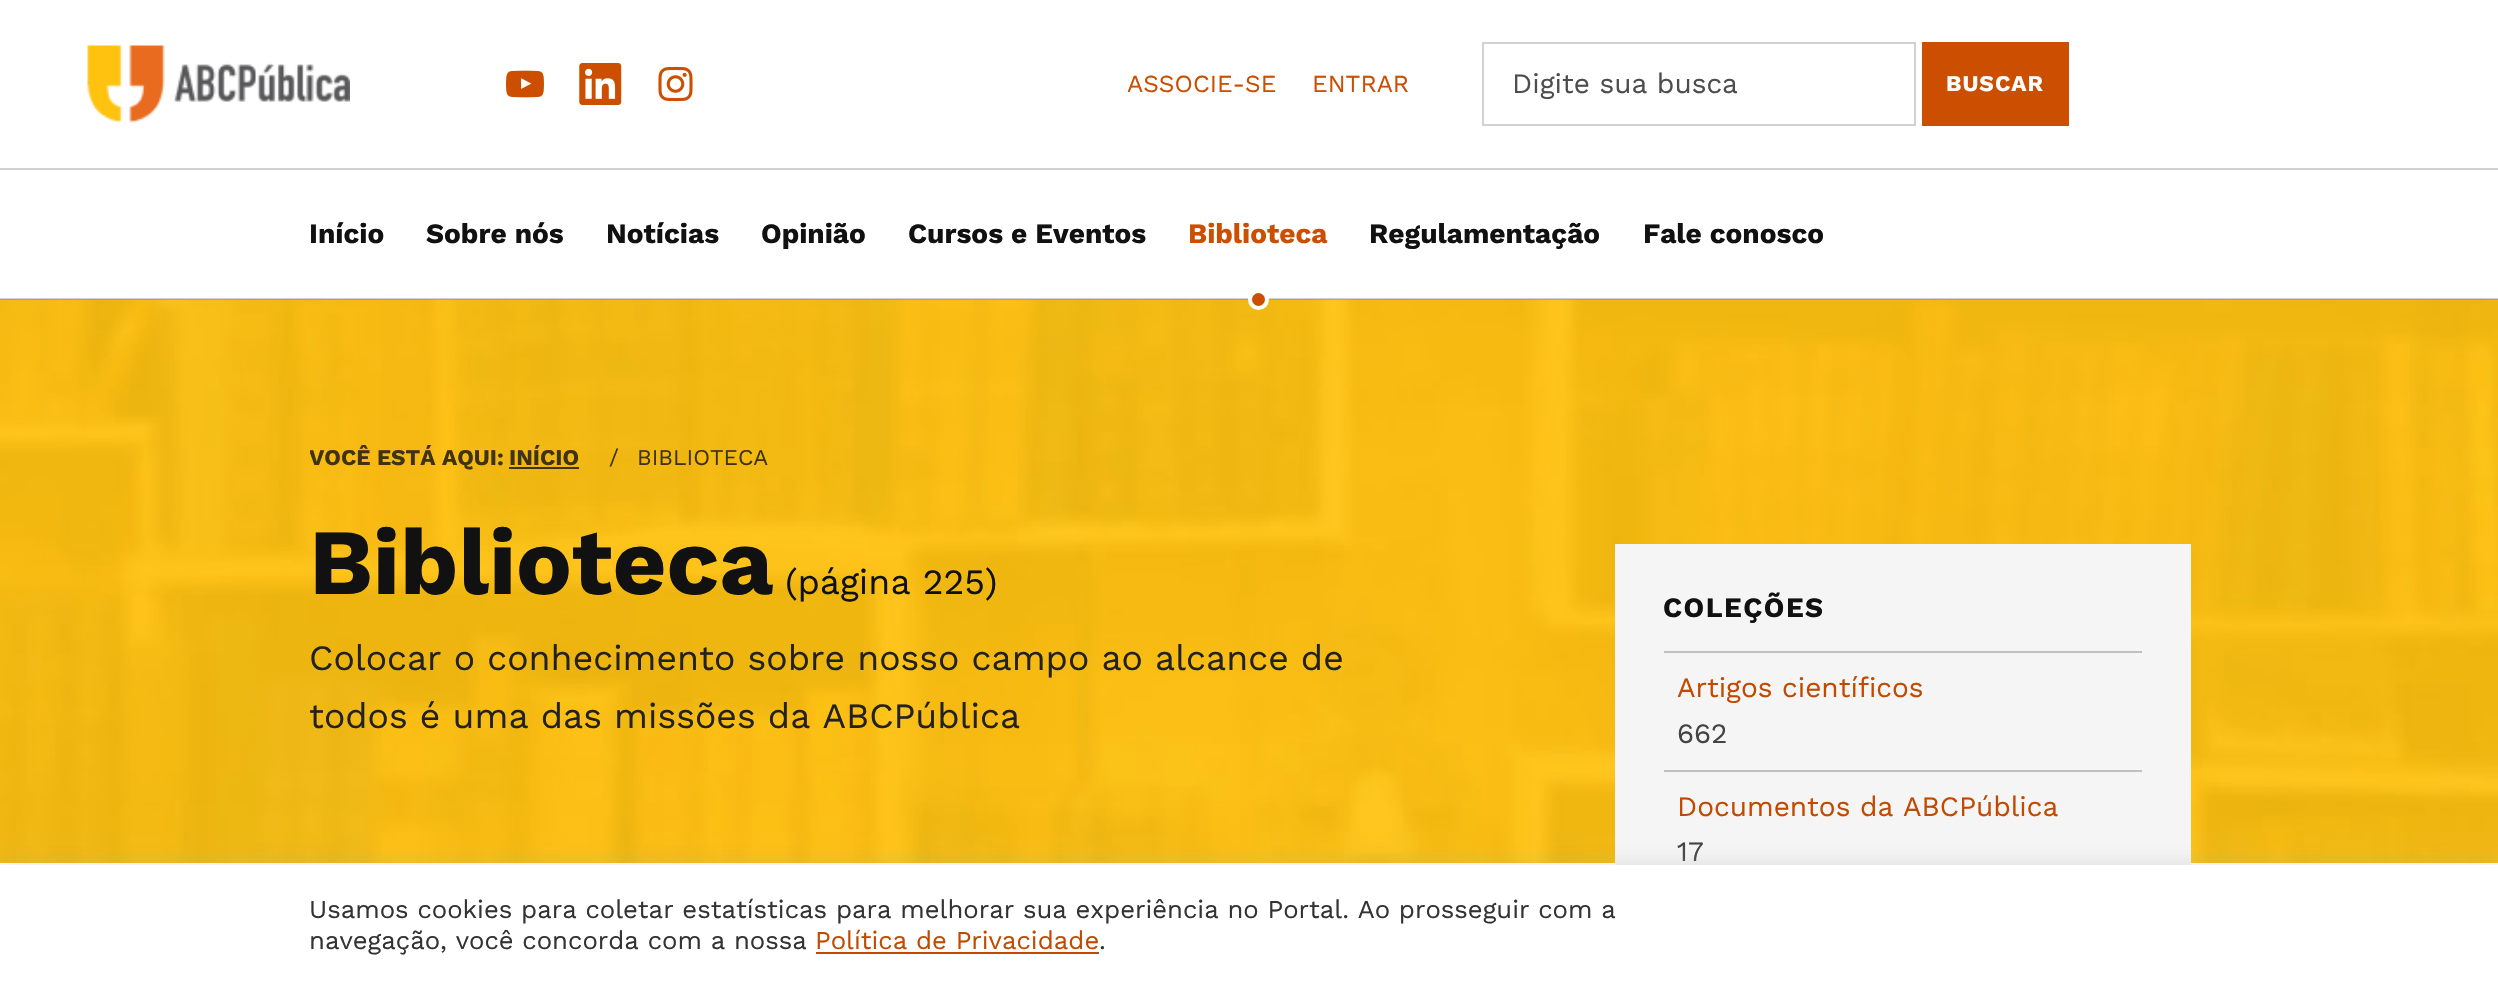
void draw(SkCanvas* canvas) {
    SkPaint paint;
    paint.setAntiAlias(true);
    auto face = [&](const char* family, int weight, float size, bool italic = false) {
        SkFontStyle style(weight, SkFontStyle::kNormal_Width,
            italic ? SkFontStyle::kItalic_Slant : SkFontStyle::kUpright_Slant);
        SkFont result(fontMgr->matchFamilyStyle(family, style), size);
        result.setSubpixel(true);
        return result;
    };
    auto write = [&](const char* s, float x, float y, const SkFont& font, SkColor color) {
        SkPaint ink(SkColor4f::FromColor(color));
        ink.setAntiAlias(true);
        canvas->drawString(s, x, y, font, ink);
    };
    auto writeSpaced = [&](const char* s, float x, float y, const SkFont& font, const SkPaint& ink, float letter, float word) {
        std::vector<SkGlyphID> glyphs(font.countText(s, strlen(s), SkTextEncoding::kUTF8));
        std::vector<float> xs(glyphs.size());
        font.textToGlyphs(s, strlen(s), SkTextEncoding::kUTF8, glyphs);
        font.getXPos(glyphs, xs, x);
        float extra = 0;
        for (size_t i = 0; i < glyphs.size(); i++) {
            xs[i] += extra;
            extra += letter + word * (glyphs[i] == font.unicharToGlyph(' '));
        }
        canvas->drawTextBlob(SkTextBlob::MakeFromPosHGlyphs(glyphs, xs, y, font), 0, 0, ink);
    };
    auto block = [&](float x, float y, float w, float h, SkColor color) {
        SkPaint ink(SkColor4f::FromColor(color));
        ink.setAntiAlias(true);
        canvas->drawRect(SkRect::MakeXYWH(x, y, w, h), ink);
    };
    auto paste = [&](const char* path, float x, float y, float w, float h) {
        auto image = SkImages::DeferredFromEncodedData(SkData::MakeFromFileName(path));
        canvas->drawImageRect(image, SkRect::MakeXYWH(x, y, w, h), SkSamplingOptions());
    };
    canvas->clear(SK_ColorWHITE);
    block(0, 168, 2498, 2, SkColorSetRGB(209, 209, 209));
    paste("pic1.png", 87, 45, 263, 78);
    paste("pic2.png", 506, 70, 38, 28);
    paste("pic3.png", 579, 63, 43, 42);
    paste("pic4.png", 658, 66, 35, 36);
    auto kFont1 = face("Work Sans", 400, 24.5f);
    write("ASSOCIE-SE", 1127, 92, kFont1, SkColorSetRGB(204, 78, 0));
    write("ENTRAR", 1312, 92, kFont1, SkColorSetRGB(204, 78, 0));
    paint.setStyle(SkPaint::kStroke_Style);
    paint.setStrokeWidth(2);
    paint.setColor(SkColorSetRGB(209, 209, 209));
    canvas->drawRect(SkRect::MakeXYWH(1483, 43, 432, 82), paint);
    auto kFont2 = face("Work Sans", 400, 28);
    write("Digite sua busca", 1512, 93, kFont2, SkColorSetRGB(77, 77, 77));
    block(1922, 42, 147, 84, SkColorSetRGB(204, 78, 0));
    auto kFont3 = face("Work Sans", 700, 22.5f);
    paint.setStyle(SkPaint::kFill_Style);
    paint.setColor(SK_ColorWHITE);
    writeSpaced("BUSCAR", 1946, 91, kFont3, paint, 1, 0);
    block(0, 299, 2498, 564, SkColorSetRGB(255, 195, 18));
    paste("pic5.png", 0, 299, 2498, 564);
    block(0, 298, 2498, 2, SkColorSetARGB(77, 102, 102, 102));
    auto kFont4 = face("Work Sans", 700, 28);
    write("Início", 309, 243, kFont4, SkColorSetRGB(17, 17, 17));
    write("Sobre nós", 426, 243, kFont4, SkColorSetRGB(17, 17, 17));
    write("Notícias", 606, 243, kFont4, SkColorSetRGB(17, 17, 17));
    write("Opinião", 761, 243, kFont4, SkColorSetRGB(17, 17, 17));
    write("Cursos e Eventos", 908, 243, kFont4, SkColorSetRGB(17, 17, 17));
    write("Biblioteca", 1188, 243, kFont4, SkColorSetRGB(204, 78, 0));
    paint.setColor(SkColorSetRGB(204, 78, 0));
    canvas->drawCircle(1258.5f, 299.5f, 8.5f, paint);
    paint.setStyle(SkPaint::kStroke_Style);
    paint.setStrokeWidth(4);
    paint.setColor(SK_ColorWHITE);
    canvas->drawCircle(1258.5f, 299.5f, 8.5f, paint);
    write("Regulamentação", 1369, 243, kFont4, SkColorSetRGB(17, 17, 17));
    write("Fale conosco", 1643, 243, kFont4, SkColorSetRGB(17, 17, 17));
    canvas->save();
    canvas->clipRect(SkRect::MakeXYWH(310, 441, 1120, 37));
    write("VOCÊ ESTÁ AQUI:", 309, 465, kFont3, SkColorSetRGB(63, 51, 18));
    canvas->restore();
    write("INÍCIO", 509, 465, kFont3, SkColorSetRGB(63, 51, 18));
    block(509, 467, 70, 2, SkColorSetARGB(204, 17, 17, 17));
    auto kFont5 = face("Work Sans", 400, 22.5f);
    write("/", 609, 465, kFont5, SkColorSetRGB(63, 51, 18));
    write("BIBLIOTECA", 637, 465, kFont5, SkColorSetRGB(63, 51, 18));
    auto kFont6 = face("Work Sans", 700, 93.25f);
    write("Biblioteca", 309, 594, kFont6, SkColorSetRGB(17, 17, 17));
    auto kFont7 = face("Work Sans", 400, 35.6f);
    write("(página 225)", 785, 594, kFont7, SkColorSetRGB(17, 17, 17));
    write("Colocar o conhecimento sobre nosso campo ao alcance de", 309, 670, kFont7, SkColorSetRGB(34, 34, 34));
    write("todos é uma das missões da ABCPública", 309, 728, kFont7, SkColorSetRGB(34, 34, 34));
    block(1615, 544, 576, 321, SkColorSetRGB(245, 245, 245));
    paint.setStyle(SkPaint::kFill_Style);
    paint.setColor(SkColorSetRGB(17, 17, 17));
    writeSpaced("COLEÇÕES", 1663, 617, kFont4, paint, 1.5f, 0);
    block(1664, 651, 478, 2, SkColorSetRGB(192, 192, 192));
    write("Artigos científicos", 1677, 697, kFont2, SkColorSetRGB(194, 74, 0));
    write("662", 1677, 743, kFont2, SkColorSetRGB(68, 68, 68));
    block(1664, 770, 478, 2, SkColorSetRGB(192, 192, 192));
    write("Documentos da ABCPública", 1677, 816, kFont2, SkColorSetRGB(194, 74, 0));
    write("17", 1677, 861, kFont2, SkColorSetRGB(68, 68, 68));
    paint.setColor(SkColorSetARGB(77, 172, 171, 171));
    paint.setMaskFilter(SkMaskFilter::MakeBlur(kNormal_SkBlurStyle, 9));
    canvas->drawRect(SkRect::MakeXYWH(0, 863, 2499, 121), paint);
    paint.setMaskFilter(nullptr);
    block(0, 865, 2498, 119, SK_ColorWHITE);
    auto kFont8 = face("Work Sans", 400, 25.67f);
    write("Usamos cookies para coletar estatísticas para melhorar sua experiência no Portal. Ao prosseguir com a", 309, 918, kFont8, SkColorSetRGB(51, 51, 51));
    write("navegação, você concorda com a nossa", 309, 949, kFont8, SkColorSetRGB(51, 51, 51));
    write("Política de Privacidade", 815, 949, kFont8, SkColorSetRGB(194, 74, 0));
    block(816, 952, 283, 2, SkColorSetRGB(194, 74, 0));
    write(".", 1099, 949, kFont8, SkColorSetRGB(51, 51, 51));
}
